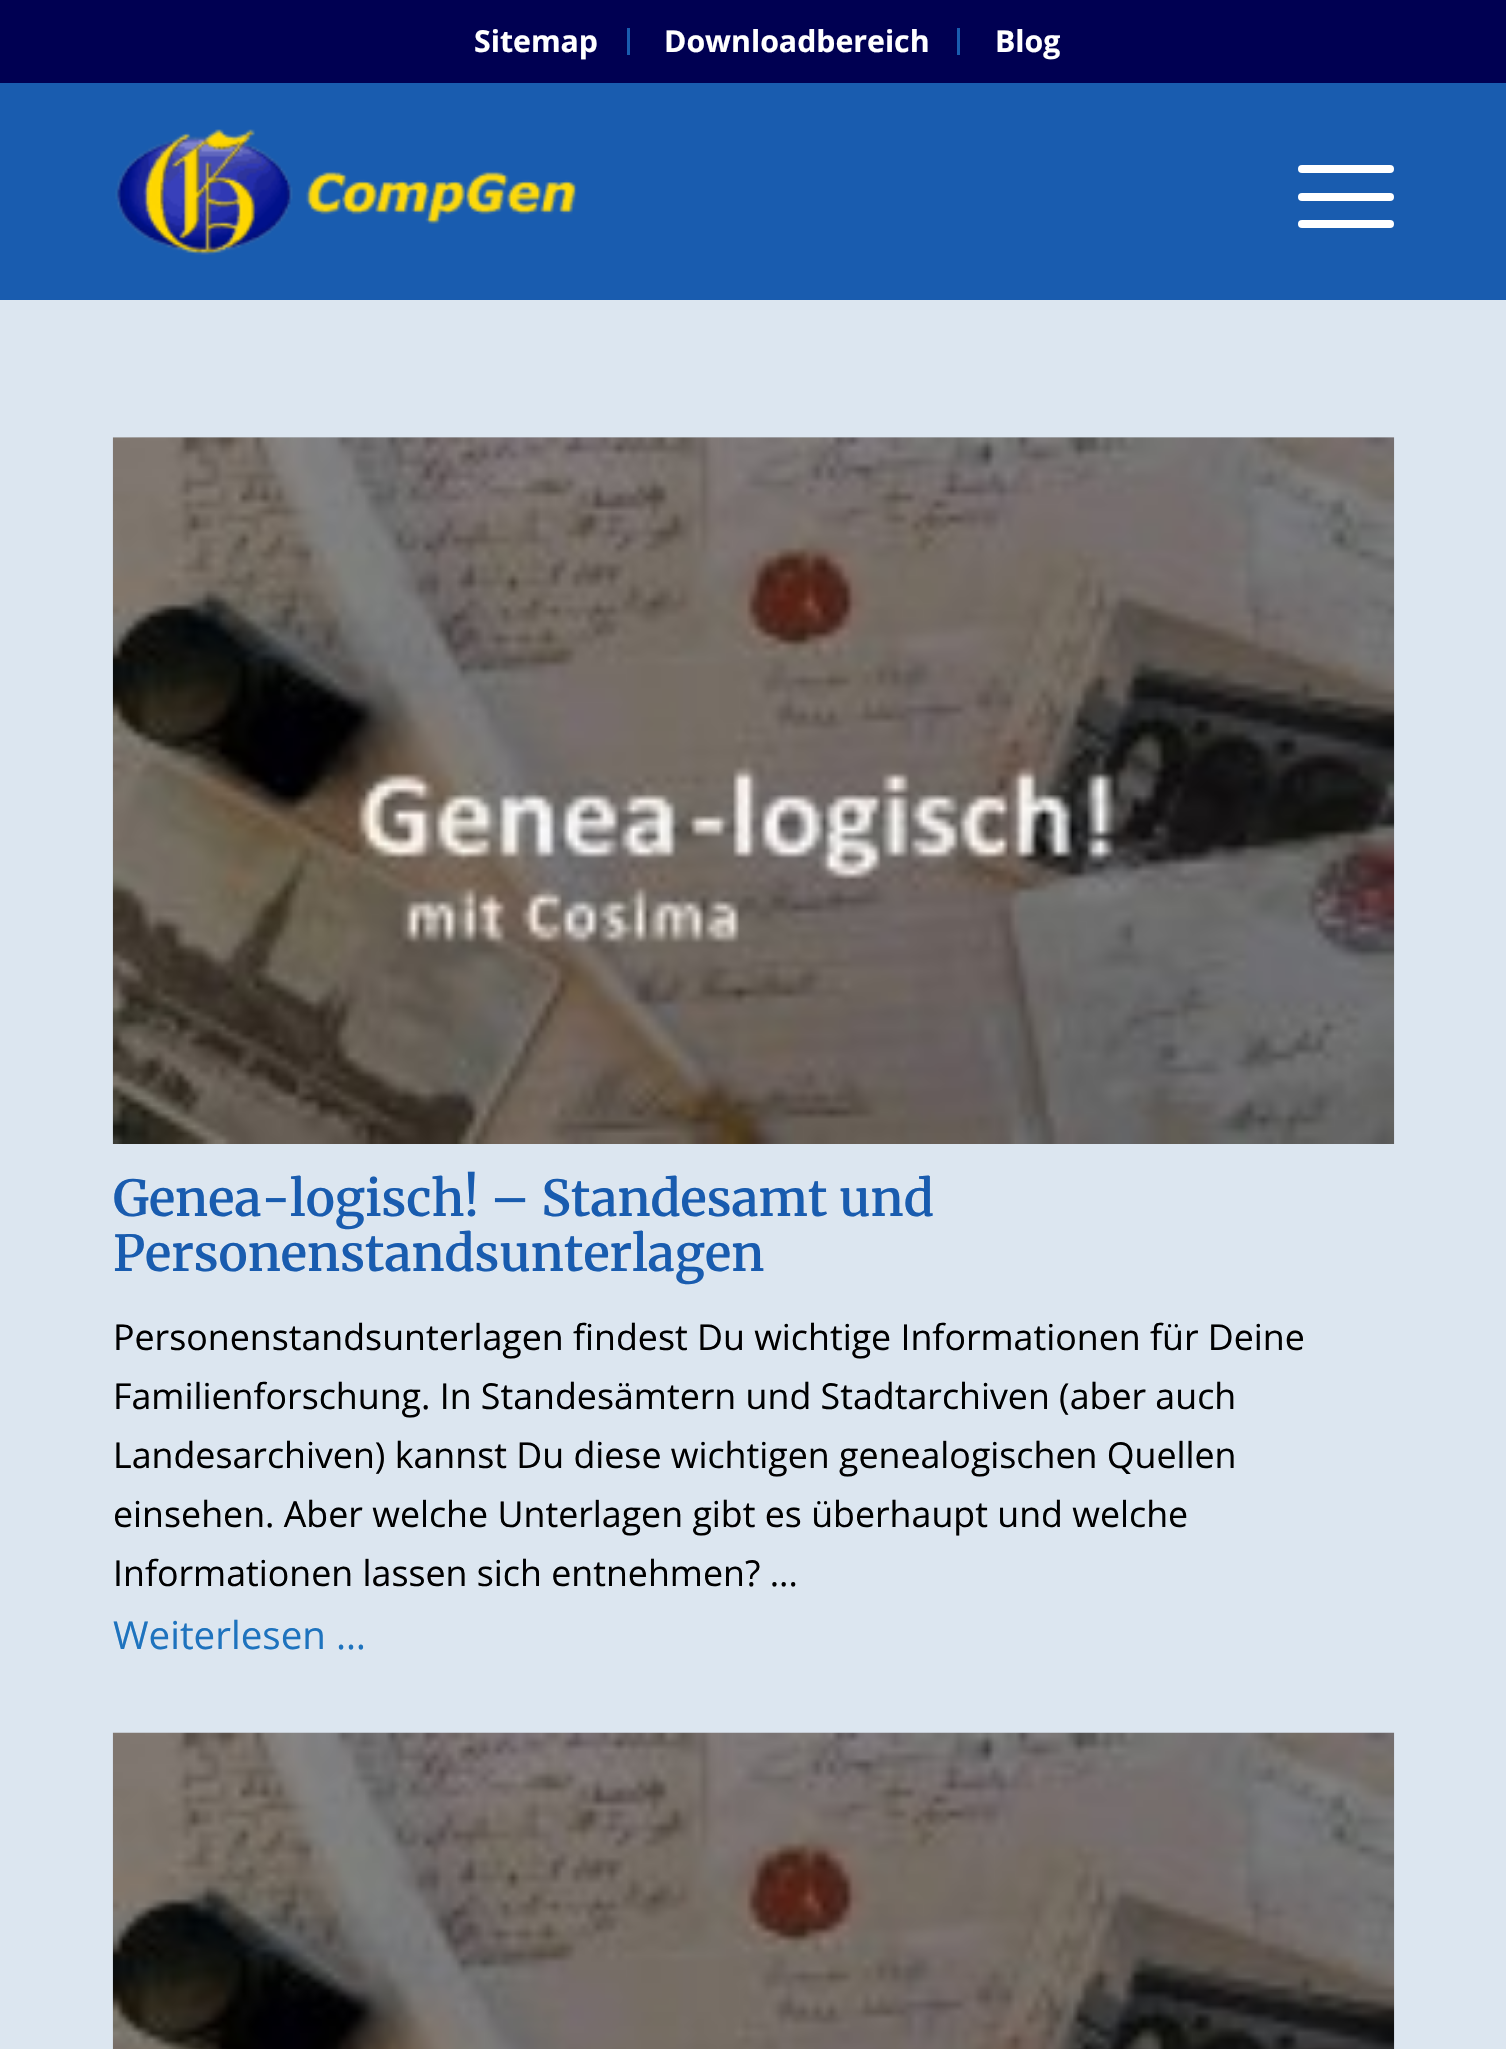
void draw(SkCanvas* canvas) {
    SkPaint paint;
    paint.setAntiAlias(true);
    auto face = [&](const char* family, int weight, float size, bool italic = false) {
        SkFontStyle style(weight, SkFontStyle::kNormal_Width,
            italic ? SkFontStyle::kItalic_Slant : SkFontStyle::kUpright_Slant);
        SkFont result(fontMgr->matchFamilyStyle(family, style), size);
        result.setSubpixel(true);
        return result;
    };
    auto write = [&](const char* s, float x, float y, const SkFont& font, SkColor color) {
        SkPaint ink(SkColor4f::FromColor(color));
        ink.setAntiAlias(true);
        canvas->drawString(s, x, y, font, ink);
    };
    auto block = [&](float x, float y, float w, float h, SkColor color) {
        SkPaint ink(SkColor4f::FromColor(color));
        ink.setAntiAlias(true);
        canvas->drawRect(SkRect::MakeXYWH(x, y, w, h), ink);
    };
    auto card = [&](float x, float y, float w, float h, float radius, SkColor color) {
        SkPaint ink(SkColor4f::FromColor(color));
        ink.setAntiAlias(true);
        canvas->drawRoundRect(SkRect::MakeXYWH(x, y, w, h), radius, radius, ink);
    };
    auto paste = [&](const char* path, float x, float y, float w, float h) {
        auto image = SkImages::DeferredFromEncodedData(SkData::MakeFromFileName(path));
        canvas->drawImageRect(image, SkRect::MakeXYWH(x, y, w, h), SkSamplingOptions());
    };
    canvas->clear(SkColorSetRGB(220, 230, 240));
    block(0, 0, 1506, 83, SkColorSetRGB(0, 0, 82));
    block(627, 28, 3, 27, SkColorSetRGB(25, 92, 175));
    auto kFont1 = face("Open Sans", 700, 30.25f);
    write("Sitemap", 474, 52, kFont1, SK_ColorWHITE);
    block(957, 28, 3, 27, SkColorSetRGB(25, 92, 175));
    write("Downloadbereich", 664, 52, kFont1, SK_ColorWHITE);
    write("Blog", 995, 52, kFont1, SK_ColorWHITE);
    block(0, 83, 1506, 217, SkColorSetRGB(25, 92, 175));
    paste("pic1.png", 115, 129, 462, 126);
    card(1298, 193, 96, 8, 4, SK_ColorWHITE);
    card(1298, 165, 96, 8, 4, SK_ColorWHITE);
    card(1298, 220, 96, 8, 4, SK_ColorWHITE);
    canvas->save();
    canvas->clipRect(SkRect::MakeXYWH(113, 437, 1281, 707));
    paint.setColor(SkColorSetARGB(128, 0, 0, 0));
    paint.setMaskFilter(SkMaskFilter::MakeBlur(kNormal_SkBlurStyle, 14));
    canvas->drawRect(SkRect::MakeXYWH(127, 451, 1281, 707), paint);
    paint.setMaskFilter(nullptr);
    canvas->restore();
    paste("pic2.png", 112, 437, 1283, 707);
    auto kFont2 = face("Merriweather", 600, 49.5f);
    write("Genea-logisch! – Standesamt und", 113, 1216, kFont2, SkColorSetRGB(25, 92, 175));
    write("Personenstandsunterlagen", 113, 1271, kFont2, SkColorSetRGB(25, 92, 175));
    auto kFont3 = face("Open Sans", 400, 35.75f);
    write("Personenstandsunterlagen findest Du wichtige Informationen für Deine", 113, 1350, kFont3, SK_ColorBLACK);
    write("Familienforschung. In Standesämtern und Stadtarchiven (aber auch", 113, 1409, kFont3, SK_ColorBLACK);
    write("Landesarchiven) kannst Du diese wichtigen genealogischen Quellen", 113, 1468, kFont3, SK_ColorBLACK);
    write("einsehen. Aber welche Unterlagen gibt es überhaupt und welche", 113, 1527, kFont3, SK_ColorBLACK);
    write("Informationen lassen sich entnehmen? ...", 113, 1586, kFont3, SK_ColorBLACK);
    auto kFont4 = face("Open Sans", 400, 38.5f);
    write("Weiterlesen …", 113, 1649, kFont4, SkColorSetRGB(30, 115, 190));
    paste("pic3.png", 112, 1732, 1283, 317);
}
